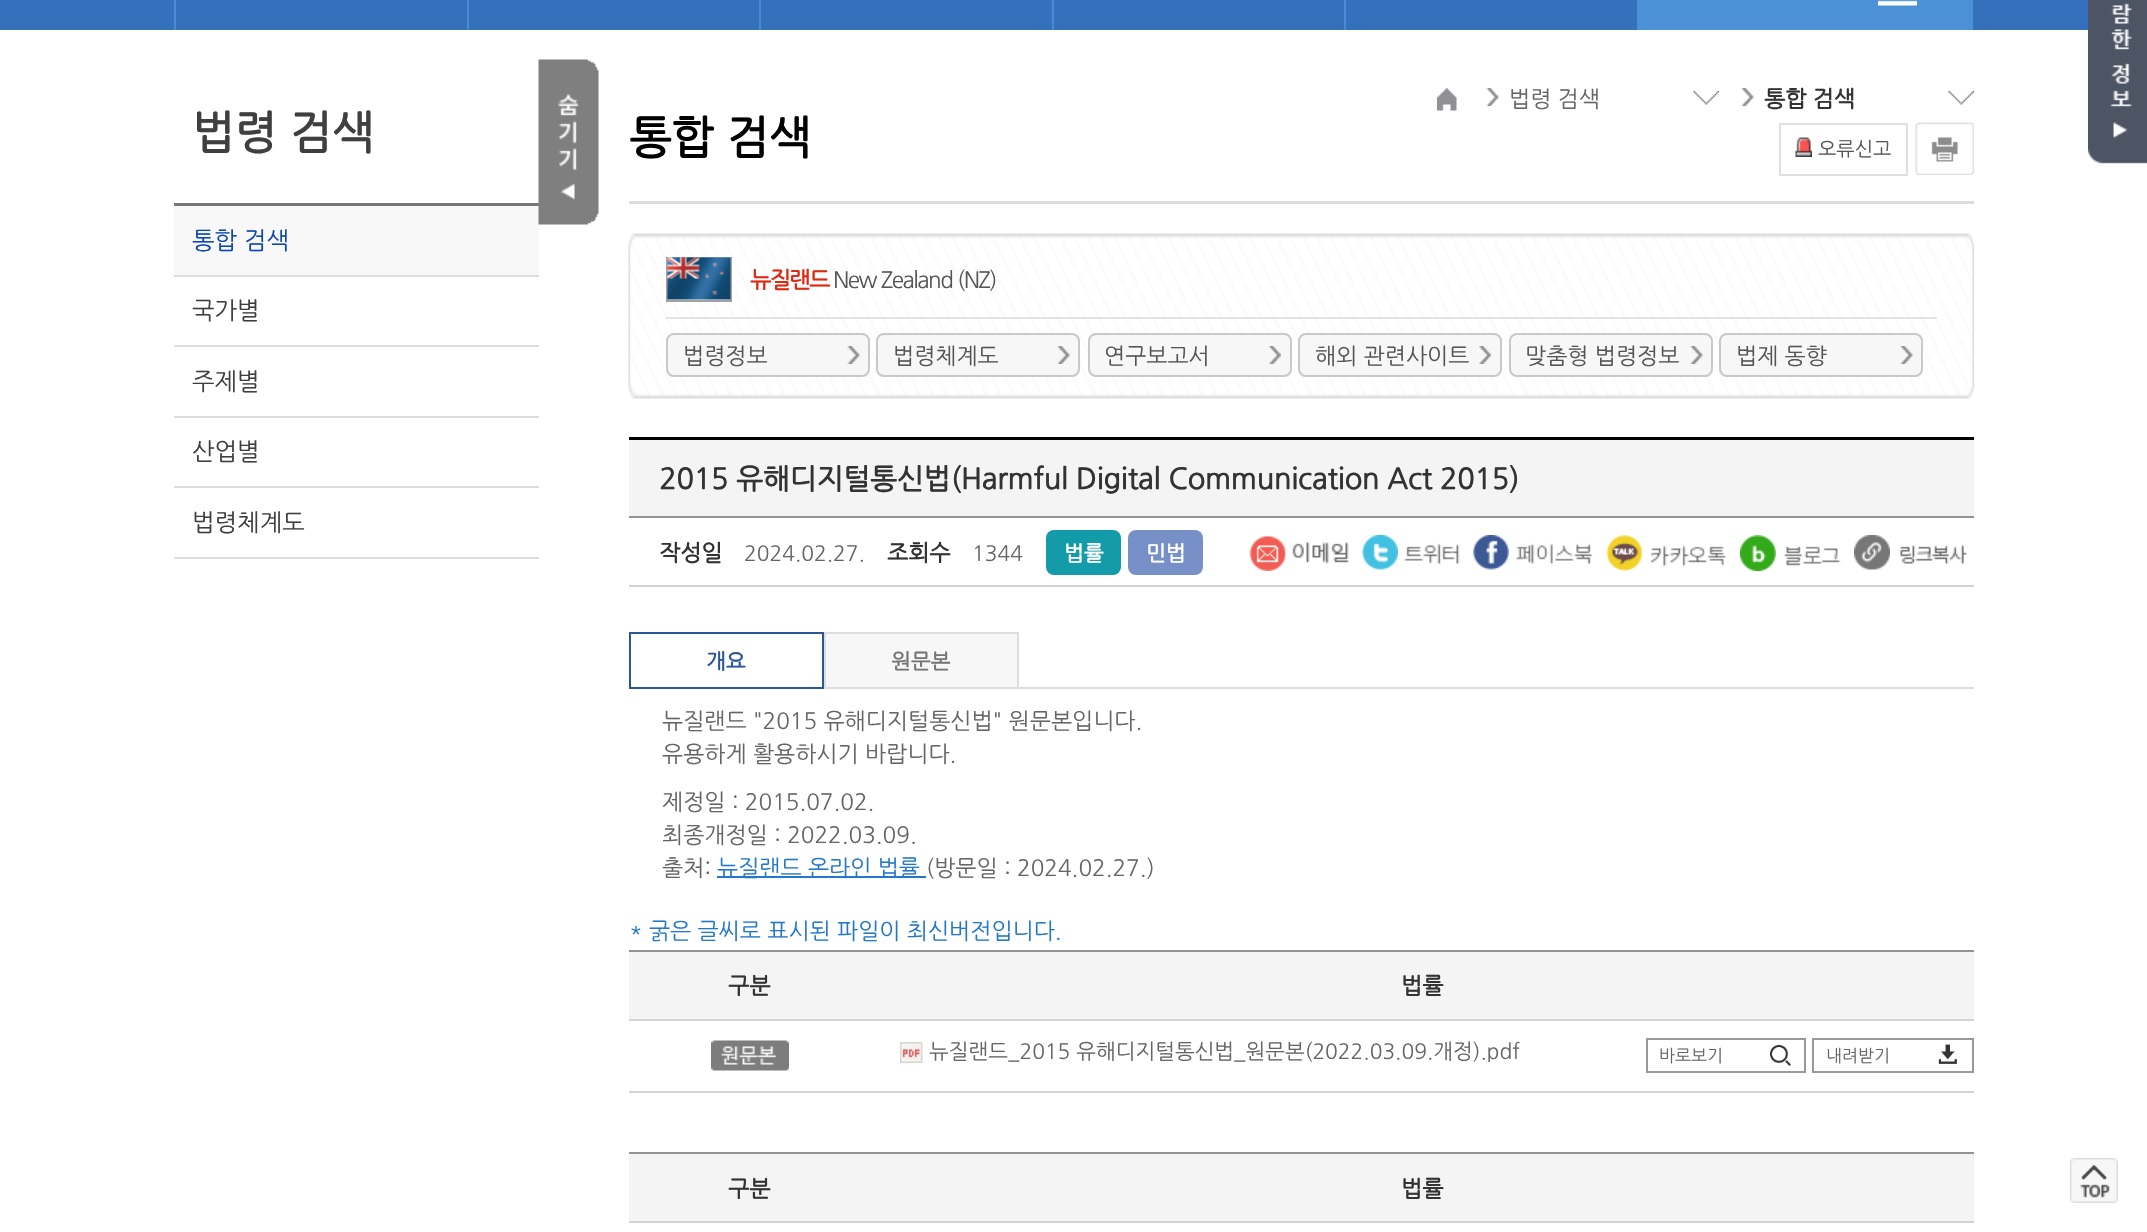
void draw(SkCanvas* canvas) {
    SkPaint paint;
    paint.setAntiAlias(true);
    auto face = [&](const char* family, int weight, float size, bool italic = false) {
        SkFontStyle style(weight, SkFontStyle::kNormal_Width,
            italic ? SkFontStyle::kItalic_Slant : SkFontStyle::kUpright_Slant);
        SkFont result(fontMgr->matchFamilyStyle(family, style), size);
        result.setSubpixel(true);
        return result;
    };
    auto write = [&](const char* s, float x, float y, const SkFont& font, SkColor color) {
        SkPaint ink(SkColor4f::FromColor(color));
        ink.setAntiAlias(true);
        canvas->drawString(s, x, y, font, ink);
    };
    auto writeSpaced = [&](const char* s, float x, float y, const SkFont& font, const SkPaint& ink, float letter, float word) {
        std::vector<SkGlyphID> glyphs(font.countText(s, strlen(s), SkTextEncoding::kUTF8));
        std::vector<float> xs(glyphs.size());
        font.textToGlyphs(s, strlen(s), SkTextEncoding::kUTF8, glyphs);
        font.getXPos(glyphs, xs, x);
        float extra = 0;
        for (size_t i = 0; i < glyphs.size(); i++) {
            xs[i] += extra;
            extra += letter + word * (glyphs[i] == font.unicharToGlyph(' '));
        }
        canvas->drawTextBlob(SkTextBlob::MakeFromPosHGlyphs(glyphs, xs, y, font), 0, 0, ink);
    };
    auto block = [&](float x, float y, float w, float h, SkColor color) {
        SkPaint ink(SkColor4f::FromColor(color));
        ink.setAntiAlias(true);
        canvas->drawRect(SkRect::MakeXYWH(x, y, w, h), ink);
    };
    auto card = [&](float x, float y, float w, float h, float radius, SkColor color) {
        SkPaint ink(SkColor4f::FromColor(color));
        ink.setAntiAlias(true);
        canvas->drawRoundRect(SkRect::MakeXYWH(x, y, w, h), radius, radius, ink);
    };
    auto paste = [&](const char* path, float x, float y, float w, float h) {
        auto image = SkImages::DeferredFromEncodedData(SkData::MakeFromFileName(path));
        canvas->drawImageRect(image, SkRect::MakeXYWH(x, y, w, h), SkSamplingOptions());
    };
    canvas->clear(SK_ColorWHITE);
    block(0, 0, 2088, 30, SkColorSetRGB(52, 112, 187));
    block(174, 0, 2, 30, SkColorSetRGB(72, 140, 211));
    block(467, 0, 2, 30, SkColorSetRGB(72, 140, 211));
    block(759, 0, 2, 30, SkColorSetRGB(72, 140, 211));
    block(1052, 0, 2, 30, SkColorSetRGB(72, 140, 211));
    block(1344, 0, 2, 30, SkColorSetRGB(72, 140, 211));
    block(1637, 0, 336, 30, SkColorSetRGB(76, 145, 214));
    paste("pic1.png", 1878, 0, 39, 6);
    block(174, 203, 365, 3, SkColorSetRGB(119, 119, 119));
    auto kFont1 = face("NanumGothic", 700, 45);
    write("법령 검색", 192, 147, kFont1, SkColorSetRGB(63, 63, 63));
    block(174, 275, 365, 2, SkColorSetRGB(221, 221, 221));
    block(174, 206, 365, 69, SkColorSetRGB(248, 248, 248));
    auto kFont2 = face("NanumGothic", 400, 24);
    write("통합 검색", 192, 248, kFont2, SkColorSetRGB(11, 70, 177));
    block(174, 345, 365, 2, SkColorSetRGB(221, 221, 221));
    write("국가별", 192, 318, kFont2, SkColorSetRGB(63, 63, 63));
    block(174, 416, 365, 2, SkColorSetRGB(221, 221, 221));
    write("주제별", 192, 389, kFont2, SkColorSetRGB(63, 63, 63));
    block(174, 486, 365, 2, SkColorSetRGB(221, 221, 221));
    write("산업별", 192, 459, kFont2, SkColorSetRGB(63, 63, 63));
    block(174, 557, 365, 2, SkColorSetRGB(221, 221, 221));
    write("법령체계도", 192, 530, kFont2, SkColorSetRGB(63, 63, 63));
    paste("pic2.png", 538, 59, 61, 166);
    block(629, 201, 1345, 3, SkColorSetRGB(221, 221, 221));
    write("통합 검색", 629, 152, kFont1, SK_ColorBLACK);
    paste("pic3.png", 1437, 88, 20, 23);
    paste("pic4.png", 1486, 88, 13, 18);
    paste("pic5.png", 1693, 91, 26, 14);
    auto kFont3 = face("NanumGothic", 400, 22.5f);
    write("법령 검색", 1509, 106, kFont3, SkColorSetRGB(101, 101, 101));
    paste("pic6.png", 1741, 88, 13, 18);
    paste("pic7.png", 1948, 91, 26, 14);
    auto kFont4 = face("NanumGothic", 700, 22.5f);
    write("통합 검색", 1764, 106, kFont4, SkColorSetRGB(51, 51, 51));
    paint.setStyle(SkPaint::kStroke_Style);
    paint.setStrokeWidth(2);
    paint.setColor(SkColorSetRGB(224, 224, 224));
    canvas->drawRoundRect(SkRect::MakeXYWH(1780, 124, 127, 51), 0.5f, 0.5f, paint);
    paste("pic8.png", 1795, 137, 17, 20);
    auto kFont5 = face("NanumGothic", 400, 19.5f);
    write("오류신고", 1818, 155, kFont5, SkColorSetRGB(85, 85, 85));
    paste("pic9.png", 1915, 122, 59, 53);
    paste("pic10.png", 628, 233, 1346, 166);
    paint.setColor(SkColorSetRGB(161, 161, 162));
    canvas->drawRect(SkRect::MakeXYWH(667, 258, 64, 43), paint);
    paste("pic11.png", 667, 257, 64, 43);
    paint.setStyle(SkPaint::kFill_Style);
    paint.setColor(SkColorSetRGB(222, 41, 16));
    writeSpaced("뉴질랜드", 750, 287, kFont4, paint, -1.5f, 0);
    paint.setColor(SkColorSetRGB(85, 85, 85));
    writeSpaced("New Zealand (NZ)", 833, 287, kFont3, paint, -1.5f, 0);
    block(666, 317, 1271, 2, SkColorSetRGB(228, 228, 228));
    card(666, 333, 204, 44, 8, SkColorSetRGB(247, 247, 247));
    paste("pic12.png", 847, 346, 13, 18);
    paint.setStyle(SkPaint::kStroke_Style);
    paint.setColor(SkColorSetRGB(201, 201, 201));
    canvas->drawRoundRect(SkRect::MakeXYWH(667, 334, 202, 42), 7, 7, paint);
    write("법령정보", 683, 363, kFont3, SkColorSetRGB(85, 85, 85));
    card(876, 333, 204, 44, 8, SkColorSetRGB(247, 247, 247));
    paste("pic13.png", 1057, 346, 13, 18);
    canvas->drawRoundRect(SkRect::MakeXYWH(877, 334, 202, 42), 7, 7, paint);
    write("법령체계도", 893, 363, kFont3, SkColorSetRGB(85, 85, 85));
    card(1088, 333, 204, 44, 8, SkColorSetRGB(247, 247, 247));
    paste("pic14.png", 1269, 346, 12, 18);
    canvas->drawRoundRect(SkRect::MakeXYWH(1089, 334, 202, 42), 7, 7, paint);
    write("연구보고서", 1104, 363, kFont3, SkColorSetRGB(85, 85, 85));
    card(1298, 333, 204, 44, 8, SkColorSetRGB(247, 247, 247));
    paste("pic15.png", 1479, 346, 12, 18);
    canvas->drawRoundRect(SkRect::MakeXYWH(1299, 334, 202, 42), 7, 7, paint);
    write("해외 관련사이트", 1315, 363, kFont3, SkColorSetRGB(85, 85, 85));
    card(1509, 333, 204, 44, 8, SkColorSetRGB(247, 247, 247));
    paste("pic12.png", 1690, 346, 13, 18);
    canvas->drawRoundRect(SkRect::MakeXYWH(1510, 334, 202, 42), 7, 7, paint);
    write("맞춤형 법령정보", 1525, 363, kFont3, SkColorSetRGB(85, 85, 85));
    card(1719, 333, 204, 44, 8, SkColorSetRGB(247, 247, 247));
    paste("pic13.png", 1900, 346, 13, 18);
    canvas->drawRoundRect(SkRect::MakeXYWH(1720, 334, 202, 42), 7, 7, paint);
    write("법제 동향", 1736, 363, kFont3, SkColorSetRGB(85, 85, 85));
    block(629, 440, 1345, 76, SkColorSetRGB(244, 244, 244));
    block(629, 437, 1345, 3, SK_ColorBLACK);
    auto kFont6 = face("NanumGothic", 700, 28.5f);
    write("2015 유해디지털통신법(Harmful Digital Communication Act 2015)", 659, 488, kFont6, SkColorSetRGB(51, 51, 51));
    block(629, 516, 1345, 2, SkColorSetRGB(147, 147, 147));
    block(629, 585, 1345, 2, SkColorSetRGB(211, 211, 211));
    write("작성일", 659, 560, kFont4, SkColorSetRGB(51, 51, 51));
    auto kFont7 = face("NanumGothic", 400, 21);
    write("2024.02.27.", 744, 560, kFont7, SkColorSetRGB(101, 101, 101));
    write("조회수", 887, 560, kFont4, SkColorSetRGB(51, 51, 51));
    write("1344", 972, 560, kFont7, SkColorSetRGB(101, 101, 101));
    card(1046, 530, 75, 45, 8, SkColorSetRGB(19, 155, 169));
    auto kFont8 = face("NanumGothic", 700, 21);
    write("법률", 1064, 560, kFont8, SK_ColorWHITE);
    card(1128, 530, 75, 45, 8, SkColorSetRGB(119, 144, 200));
    write("민법", 1146, 560, kFont8, SK_ColorWHITE);
    paste("pic16.png", 1249, 535, 37, 36);
    paste("pic17.png", 1285, 542, 64, 22);
    paste("pic18.png", 1362, 535, 36, 35);
    paste("pic19.png", 1404, 543, 56, 22);
    paste("pic20.png", 1473, 535, 36, 35);
    paste("pic21.png", 1516, 543, 77, 22);
    paste("pic22.png", 1606, 535, 37, 36);
    paste("pic23.png", 1642, 545, 85, 22);
    paste("pic24.png", 1740, 535, 36, 36);
    paste("pic25.png", 1784, 546, 57, 20);
    paste("pic26.png", 1854, 535, 36, 35);
    paste("pic27.png", 1900, 545, 67, 19);
    block(1019, 687, 955, 2, SkColorSetRGB(221, 221, 221));
    paint.setColor(SkColorSetRGB(44, 86, 154));
    canvas->drawRect(SkRect::MakeXYWH(630, 633, 193, 55), paint);
    write("개요", 706, 668, kFont8, SkColorSetRGB(44, 86, 154));
    paint.setStyle(SkPaint::kFill_Style);
    paint.setColor(SkColorSetRGB(247, 247, 247));
    canvas->drawRect(SkRect::MakeXYWH(825, 633, 193, 55), paint);
    paint.setStyle(SkPaint::kStroke_Style);
    paint.setColor(SkColorSetRGB(221, 221, 221));
    canvas->drawRect(SkRect::MakeXYWH(825, 633, 193, 55), paint);
    write("원문본", 891, 668, kFont8, SkColorSetRGB(119, 119, 119));
    write("뉴질랜드 \"2015 유해디지털통신법\" 원문본입니다.", 662, 728, kFont3, SkColorSetRGB(101, 101, 101));
    write("유용하게 활용하시기 바랍니다.", 662, 761, kFont3, SkColorSetRGB(101, 101, 101));
    write("제정일 : 2015.07.02.", 662, 809, kFont3, SkColorSetRGB(101, 101, 101));
    write("최종개정일 : 2022.03.09.", 662, 842, kFont3, SkColorSetRGB(101, 101, 101));
    write("출처:", 662, 875, kFont3, SkColorSetRGB(101, 101, 101));
    block(717, 876, 209, 2, SkColorSetRGB(34, 120, 201));
    write("뉴질랜드 온라인 법률", 717, 875, kFont3, SkColorSetRGB(34, 120, 201));
    write("(방문일 : 2024.02.27.)", 926, 875, kFont3, SkColorSetRGB(101, 101, 101));
    write("* 굵은 글씨로 표시된 파일이 최신버전입니다.", 629, 938, kFont3, SkColorSetRGB(34, 120, 201));
    block(629, 950, 1345, 2, SkColorSetRGB(147, 147, 147));
    block(629, 952, 1345, 67, SkColorSetRGB(244, 244, 244));
    write("구분", 728, 993, kFont4, SkColorSetRGB(51, 51, 51));
    block(629, 1019, 1345, 2, SkColorSetRGB(211, 211, 211));
    write("법률", 1401, 993, kFont4, SkColorSetRGB(51, 51, 51));
    paste("pic28.png", 711, 1040, 78, 31);
    block(629, 1091, 1345, 2, SkColorSetRGB(211, 211, 211));
    paste("pic29.png", 900, 1042, 23, 21);
    write("뉴질랜드_2015 유해디지털통신법_원문본(2022.03.09.개정).pdf", 929, 1058, kFont7, SkColorSetRGB(101, 101, 101));
    paste("pic30.png", 1770, 1045, 21, 21);
    paint.setColor(SkColorSetRGB(153, 153, 153));
    canvas->drawRect(SkRect::MakeXYWH(1647, 1039, 158, 33), paint);
    auto kFont9 = face("NanumGothic", 400, 17);
    write("바로보기", 1659, 1061, kFont9, SkColorSetRGB(101, 101, 101));
    paste("pic31.png", 1938, 1044, 19, 20);
    canvas->drawRect(SkRect::MakeXYWH(1813, 1039, 160, 33), paint);
    write("내려받기", 1826, 1061, kFont9, SkColorSetRGB(101, 101, 101));
    block(629, 1152, 1345, 2, SkColorSetRGB(147, 147, 147));
    block(629, 1154, 1345, 67, SkColorSetRGB(244, 244, 244));
    write("구분", 728, 1196, kFont4, SkColorSetRGB(51, 51, 51));
    block(629, 1221, 1345, 2, SkColorSetRGB(211, 211, 211));
    write("법률", 1401, 1196, kFont4, SkColorSetRGB(51, 51, 51));
    paste("pic32.png", 2088, 0, 59, 164);
    paste("pic33.png", 2070, 1158, 48, 45);
}
